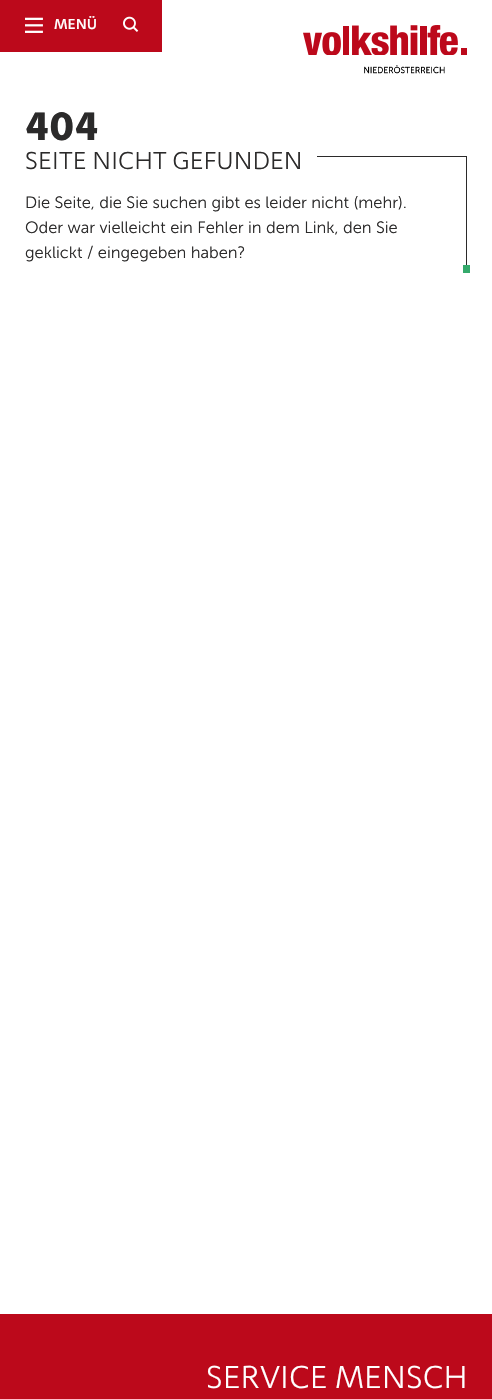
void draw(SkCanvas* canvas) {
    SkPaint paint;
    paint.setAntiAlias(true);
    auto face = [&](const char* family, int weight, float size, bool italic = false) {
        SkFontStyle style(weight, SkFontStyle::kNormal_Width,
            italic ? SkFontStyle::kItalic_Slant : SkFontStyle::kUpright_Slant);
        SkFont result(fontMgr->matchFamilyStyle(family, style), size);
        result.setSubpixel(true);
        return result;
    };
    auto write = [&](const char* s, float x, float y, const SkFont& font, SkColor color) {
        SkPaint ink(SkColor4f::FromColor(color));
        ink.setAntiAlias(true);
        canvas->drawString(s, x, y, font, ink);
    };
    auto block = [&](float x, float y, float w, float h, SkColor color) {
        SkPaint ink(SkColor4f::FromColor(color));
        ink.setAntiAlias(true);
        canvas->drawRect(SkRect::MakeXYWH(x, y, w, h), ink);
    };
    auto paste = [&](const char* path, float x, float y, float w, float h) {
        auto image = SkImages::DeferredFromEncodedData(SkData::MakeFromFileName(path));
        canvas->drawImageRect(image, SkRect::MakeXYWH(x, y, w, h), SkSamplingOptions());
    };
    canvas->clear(SK_ColorWHITE);
    block(0, 0, 162, 52, SkColorSetRGB(188, 9, 27));
    paste("pic1.png", 25, 17, 18, 16);
    auto kFont1 = face("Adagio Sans", 500, 15);
    write("MENÜ", 54, 29, kFont1, SK_ColorWHITE);
    paste("pic2.png", 123, 16, 16, 16);
    paste("pic3.png", 303, 25, 164, 30);
    paste("pic4.png", 364, 65, 81, 9);
    auto kFont2 = face("Adagio Sans", 700, 41);
    write("404", 25, 140, kFont2, SkColorSetRGB(43, 42, 42));
    auto kFont3 = face("Adagio Sans", 300, 25.4f);
    write("SEITE NICHT GEFUNDEN", 25, 169, kFont3, SkColorSetRGB(43, 42, 42));
    block(317, 156, 150, 1, SkColorSetRGB(43, 42, 42));
    block(466, 156, 1, 117, SkColorSetRGB(43, 42, 42));
    auto kFont4 = face("Museo Sans", 300, 16.45f);
    write("Die Seite, die Sie suchen gibt es leider nicht (mehr).", 25, 208, kFont4, SkColorSetRGB(43, 42, 42));
    write("Oder war vielleicht ein Fehler in dem Link, den Sie", 25, 233, kFont4, SkColorSetRGB(43, 42, 42));
    write("geklickt / eingegeben haben?", 25, 258, kFont4, SkColorSetRGB(43, 42, 42));
    block(463, 265, 7, 8, SkColorSetRGB(53, 170, 108));
    block(0, 1314, 492, 85, SkColorSetRGB(188, 9, 27));
    auto kFont5 = face("Adagio Sans", 300, 32.75f);
    write("SERVICE MENSCH", 206, 1388, kFont5, SK_ColorWHITE);
}
